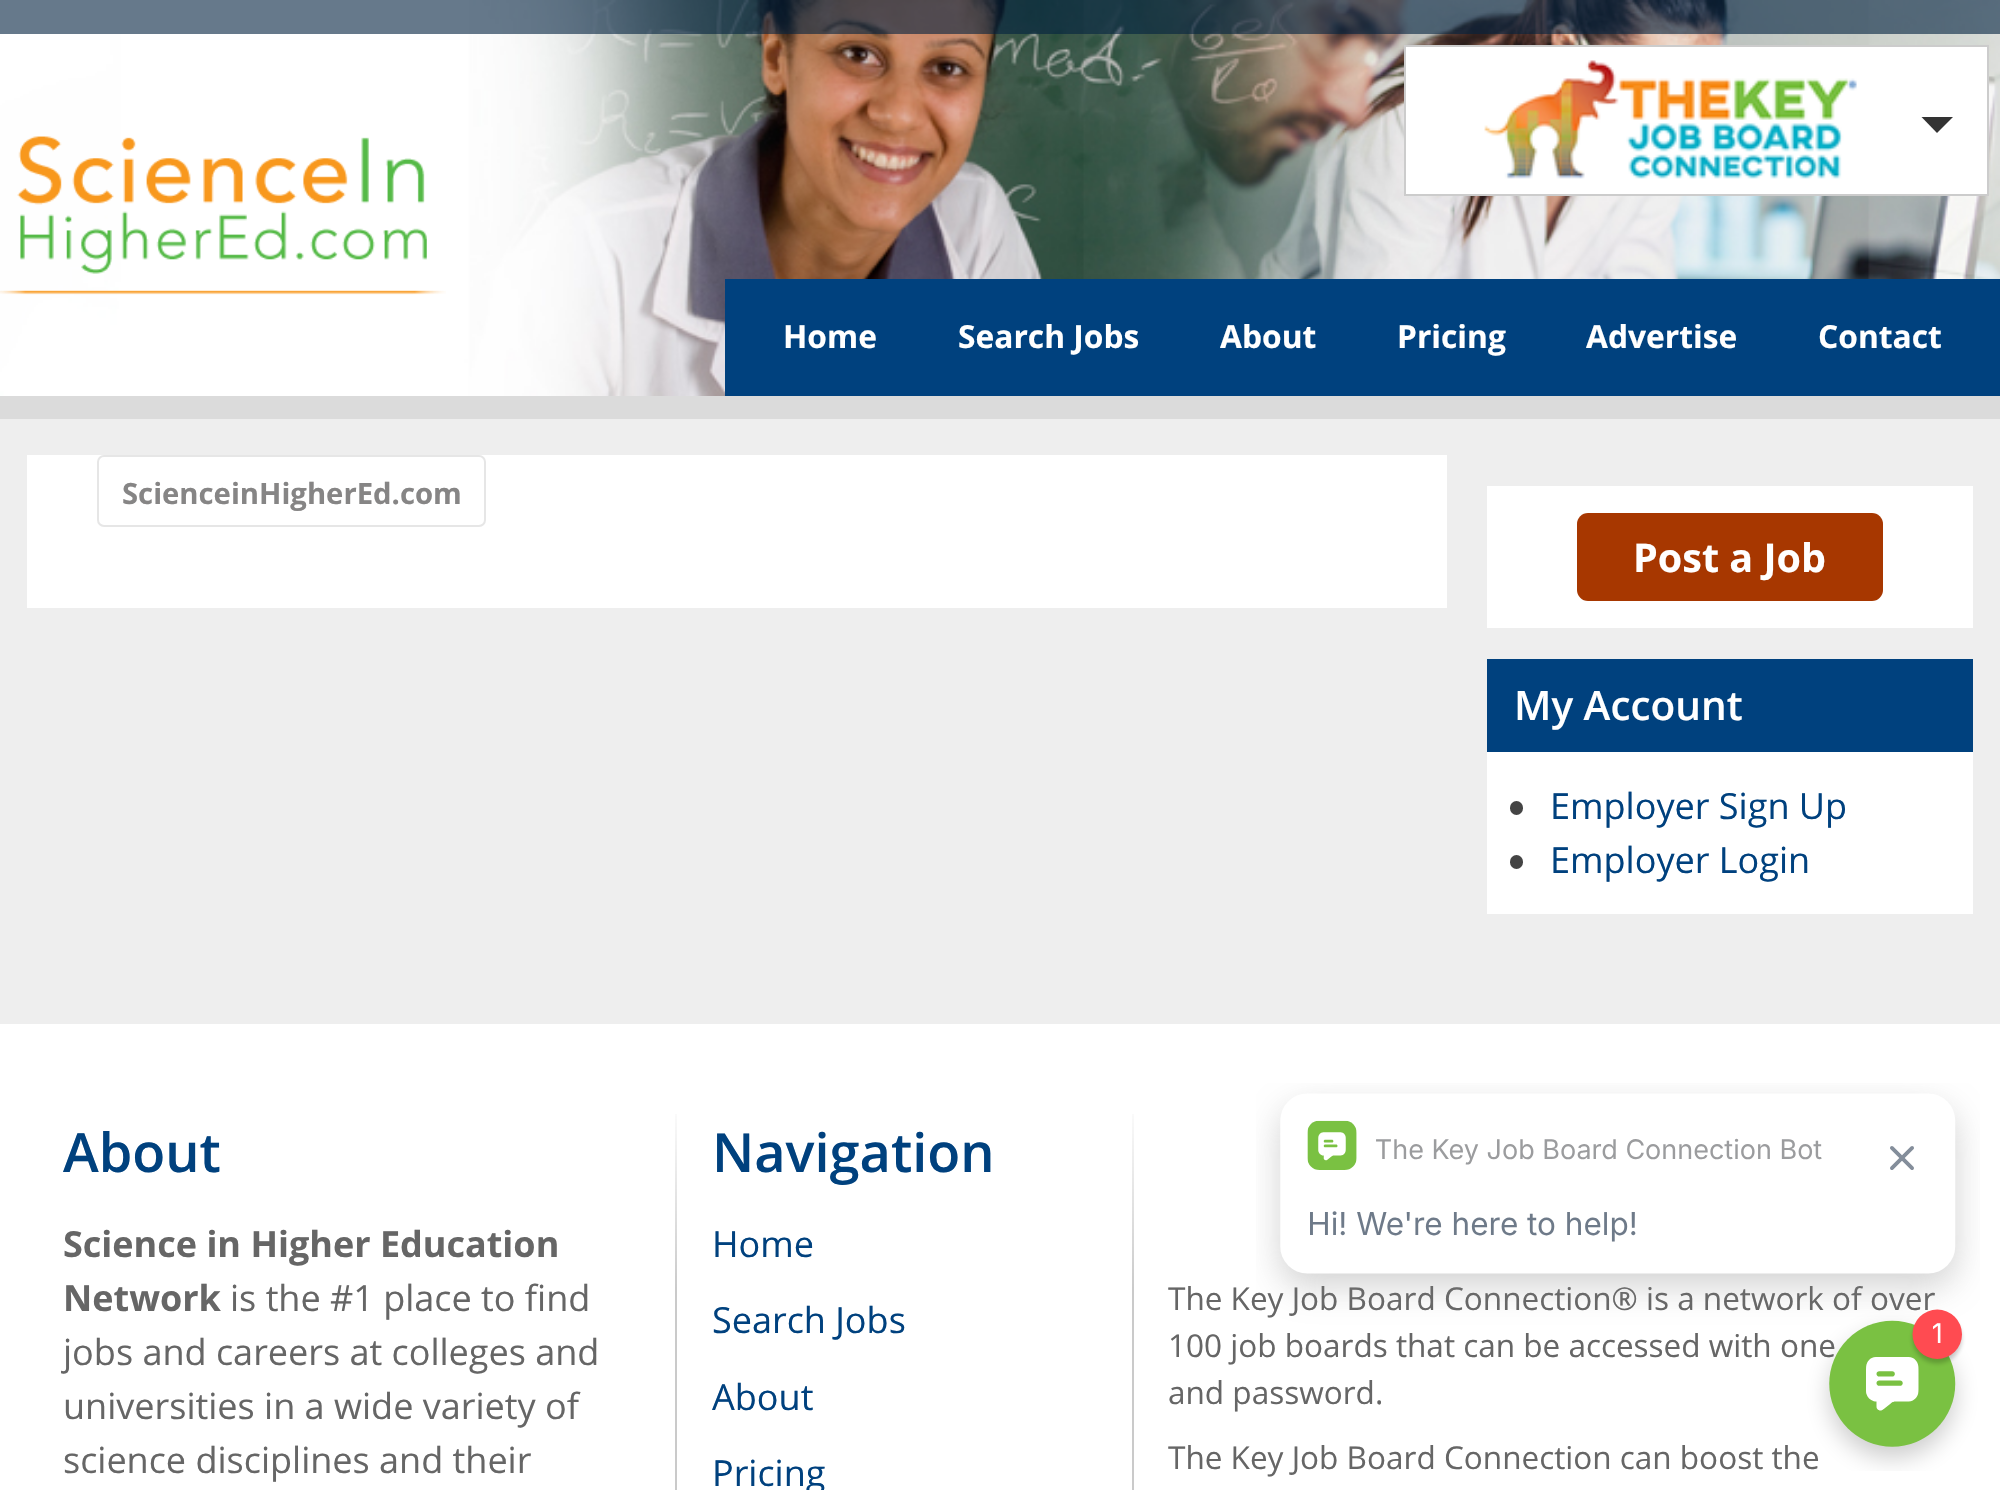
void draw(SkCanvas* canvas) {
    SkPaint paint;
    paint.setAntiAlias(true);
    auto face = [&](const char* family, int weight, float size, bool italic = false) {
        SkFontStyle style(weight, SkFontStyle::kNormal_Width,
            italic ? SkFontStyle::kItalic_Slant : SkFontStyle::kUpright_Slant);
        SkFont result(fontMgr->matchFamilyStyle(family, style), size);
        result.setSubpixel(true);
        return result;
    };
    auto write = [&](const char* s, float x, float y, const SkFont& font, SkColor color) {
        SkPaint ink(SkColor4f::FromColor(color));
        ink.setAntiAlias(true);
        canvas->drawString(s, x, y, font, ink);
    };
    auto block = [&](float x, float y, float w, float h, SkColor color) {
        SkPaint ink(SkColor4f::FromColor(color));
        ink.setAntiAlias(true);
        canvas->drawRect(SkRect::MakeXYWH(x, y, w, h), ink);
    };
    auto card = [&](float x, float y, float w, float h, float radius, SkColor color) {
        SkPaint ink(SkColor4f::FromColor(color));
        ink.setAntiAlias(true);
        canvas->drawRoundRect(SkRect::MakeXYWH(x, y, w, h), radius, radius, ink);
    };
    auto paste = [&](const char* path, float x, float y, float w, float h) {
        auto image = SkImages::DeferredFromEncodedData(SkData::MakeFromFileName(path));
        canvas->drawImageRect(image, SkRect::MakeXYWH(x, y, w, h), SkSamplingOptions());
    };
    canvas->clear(SkColorSetRGB(238, 238, 238));
    paste("pic1.png", 0, 0, 2000, 396);
    block(0, 396, 2000, 23, SkColorSetRGB(219, 219, 219));
    block(0, 0, 2000, 34, SkColorSetARGB(153, 0, 32, 62));
    paint.setColor(SK_ColorWHITE);
    canvas->drawRect(SkRect::MakeXYWH(1405, 46, 583, 149), paint);
    paint.setStyle(SkPaint::kStroke_Style);
    paint.setStrokeWidth(2);
    paint.setColor(SkColorSetRGB(204, 204, 204));
    canvas->drawRect(SkRect::MakeXYWH(1405, 46, 583, 149), paint);
    paste("pic2.png", 1484, 60, 373, 119);
    paint.setStyle(SkPaint::kFill_Style);
    paint.setColor(SkColorSetRGB(51, 51, 51));
    canvas->drawPath(SkPathBuilder().moveTo(1921.5f, 117).lineTo(1953, 117).lineTo(1937, 133).close().detach(), paint);
    paste("pic3.png", 0, 136, 446, 159);
    block(725, 279, 1275, 117, SkColorSetRGB(0, 65, 126));
    auto kFont1 = face("Open Sans", 700, 31.75f);
    write("Home", 783, 348, kFont1, SK_ColorWHITE);
    write("Search Jobs", 958, 348, kFont1, SK_ColorWHITE);
    write("About", 1220, 348, kFont1, SK_ColorWHITE);
    write("Pricing", 1397, 348, kFont1, SK_ColorWHITE);
    write("Advertise", 1586, 348, kFont1, SK_ColorWHITE);
    write("Contact", 1818, 348, kFont1, SK_ColorWHITE);
    block(27, 455, 1420, 153, SK_ColorWHITE);
    paint.setStyle(SkPaint::kStroke_Style);
    paint.setColor(SkColorSetRGB(230, 230, 230));
    canvas->drawRoundRect(SkRect::MakeXYWH(98, 456, 387, 70), 6, 6, paint);
    auto kFont2 = face("Open Sans", 700, 29.25f);
    write("ScienceinHigherEd.com", 122, 504, kFont2, SkColorSetRGB(134, 133, 133));
    block(1487, 486, 486, 142, SK_ColorWHITE);
    card(1577, 513, 306, 88, 11, SkColorSetRGB(167, 55, 0));
    auto kFont3 = face("Open Sans", 700, 39.5f);
    write("Post a Job", 1633, 572, kFont3, SK_ColorWHITE);
    block(1487, 659, 486, 93, SkColorSetRGB(0, 65, 126));
    auto kFont4 = face("Open Sans", 600, 40.5f);
    write("My Account", 1514, 720, kFont4, SK_ColorWHITE);
    block(1487, 752, 486, 162, SK_ColorWHITE);
    card(1510, 801, 13, 14, 6.5f, SkColorSetRGB(68, 68, 68));
    auto kFont5 = face("Open Sans", 400, 36);
    write("Employer Sign Up", 1550, 819, kFont5, SkColorSetRGB(0, 65, 126));
    card(1510, 855, 13, 14, 6.5f, SkColorSetRGB(68, 68, 68));
    write("Employer Login", 1550, 873, kFont5, SkColorSetRGB(0, 65, 126));
    block(0, 1024, 2000, 466, SK_ColorWHITE);
    auto kFont6 = face("Open Sans", 600, 54);
    write("About", 63, 1172, kFont6, SkColorSetRGB(0, 65, 126));
    auto kFont7 = face("Open Sans", 700, 36);
    write("Science in Higher Education", 63, 1257, kFont7, SkColorSetRGB(102, 102, 102));
    write("Network", 63, 1311, kFont7, SkColorSetRGB(102, 102, 102));
    write("is the #1 place to find", 230, 1311, kFont5, SkColorSetRGB(102, 102, 102));
    write("jobs and careers at colleges and", 63, 1365, kFont5, SkColorSetRGB(102, 102, 102));
    write("universities in a wide variety of", 63, 1419, kFont5, SkColorSetRGB(102, 102, 102));
    write("science disciplines and their", 63, 1473, kFont5, SkColorSetRGB(102, 102, 102));
    paint.setStyle(SkPaint::kFill_Style);
    {
        const SkColor colors[] = {SkColorSetRGB(250, 250, 250), SkColorSetRGB(202, 202, 202), SkColorSetRGB(202, 202, 202), SkColorSetRGB(250, 250, 250)};
        const float stops[] = {0, 0.15f, 0.85f, 1};
        const SkPoint ends[] = {{676, 1114}, {676, 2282}};
        paint.setShader(SkGradientShader::MakeLinear(ends, colors, stops, 4, SkTileMode::kClamp));
        paint.setAlpha(255);
    }
    canvas->drawRect(SkRect::MakeXYWH(675, 1114, 2, 376), paint);
    write("Navigation", 712, 1172, kFont6, SkColorSetRGB(0, 65, 126));
    write("Home", 712, 1257, kFont5, SkColorSetRGB(0, 65, 126));
    write("Search Jobs", 712, 1333, kFont5, SkColorSetRGB(0, 65, 126));
    write("About", 712, 1410, kFont5, SkColorSetRGB(0, 65, 126));
    write("Pricing", 712, 1486, kFont5, SkColorSetRGB(0, 65, 126));
    {
        const SkColor colors[] = {SkColorSetRGB(250, 250, 250), SkColorSetRGB(202, 202, 202), SkColorSetRGB(202, 202, 202), SkColorSetRGB(250, 250, 250)};
        const float stops[] = {0, 0.15f, 0.85f, 1};
        const SkPoint ends[] = {{1133, 1114}, {1133, 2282}};
        paint.setShader(SkGradientShader::MakeLinear(ends, colors, stops, 4, SkTileMode::kClamp));
        paint.setAlpha(255);
    }
    canvas->drawRect(SkRect::MakeXYWH(1132, 1114, 2, 376), paint);
    auto kFont8 = face("Open Sans", 400, 31.5f);
    write("The Key Job Board Connection® is a network of over", 1168, 1310, kFont8, SkColorSetRGB(102, 102, 102));
    write("100 job boards that can be accessed with one", 1168, 1357, kFont8, SkColorSetRGB(102, 102, 102));
    write("and password.", 1168, 1404, kFont8, SkColorSetRGB(102, 102, 102));
    write("The Key Job Board Connection can boost the", 1168, 1469, kFont8, SkColorSetRGB(102, 102, 102));
    paste("pic4.png", 1256, 1083, 724, 388);
}
